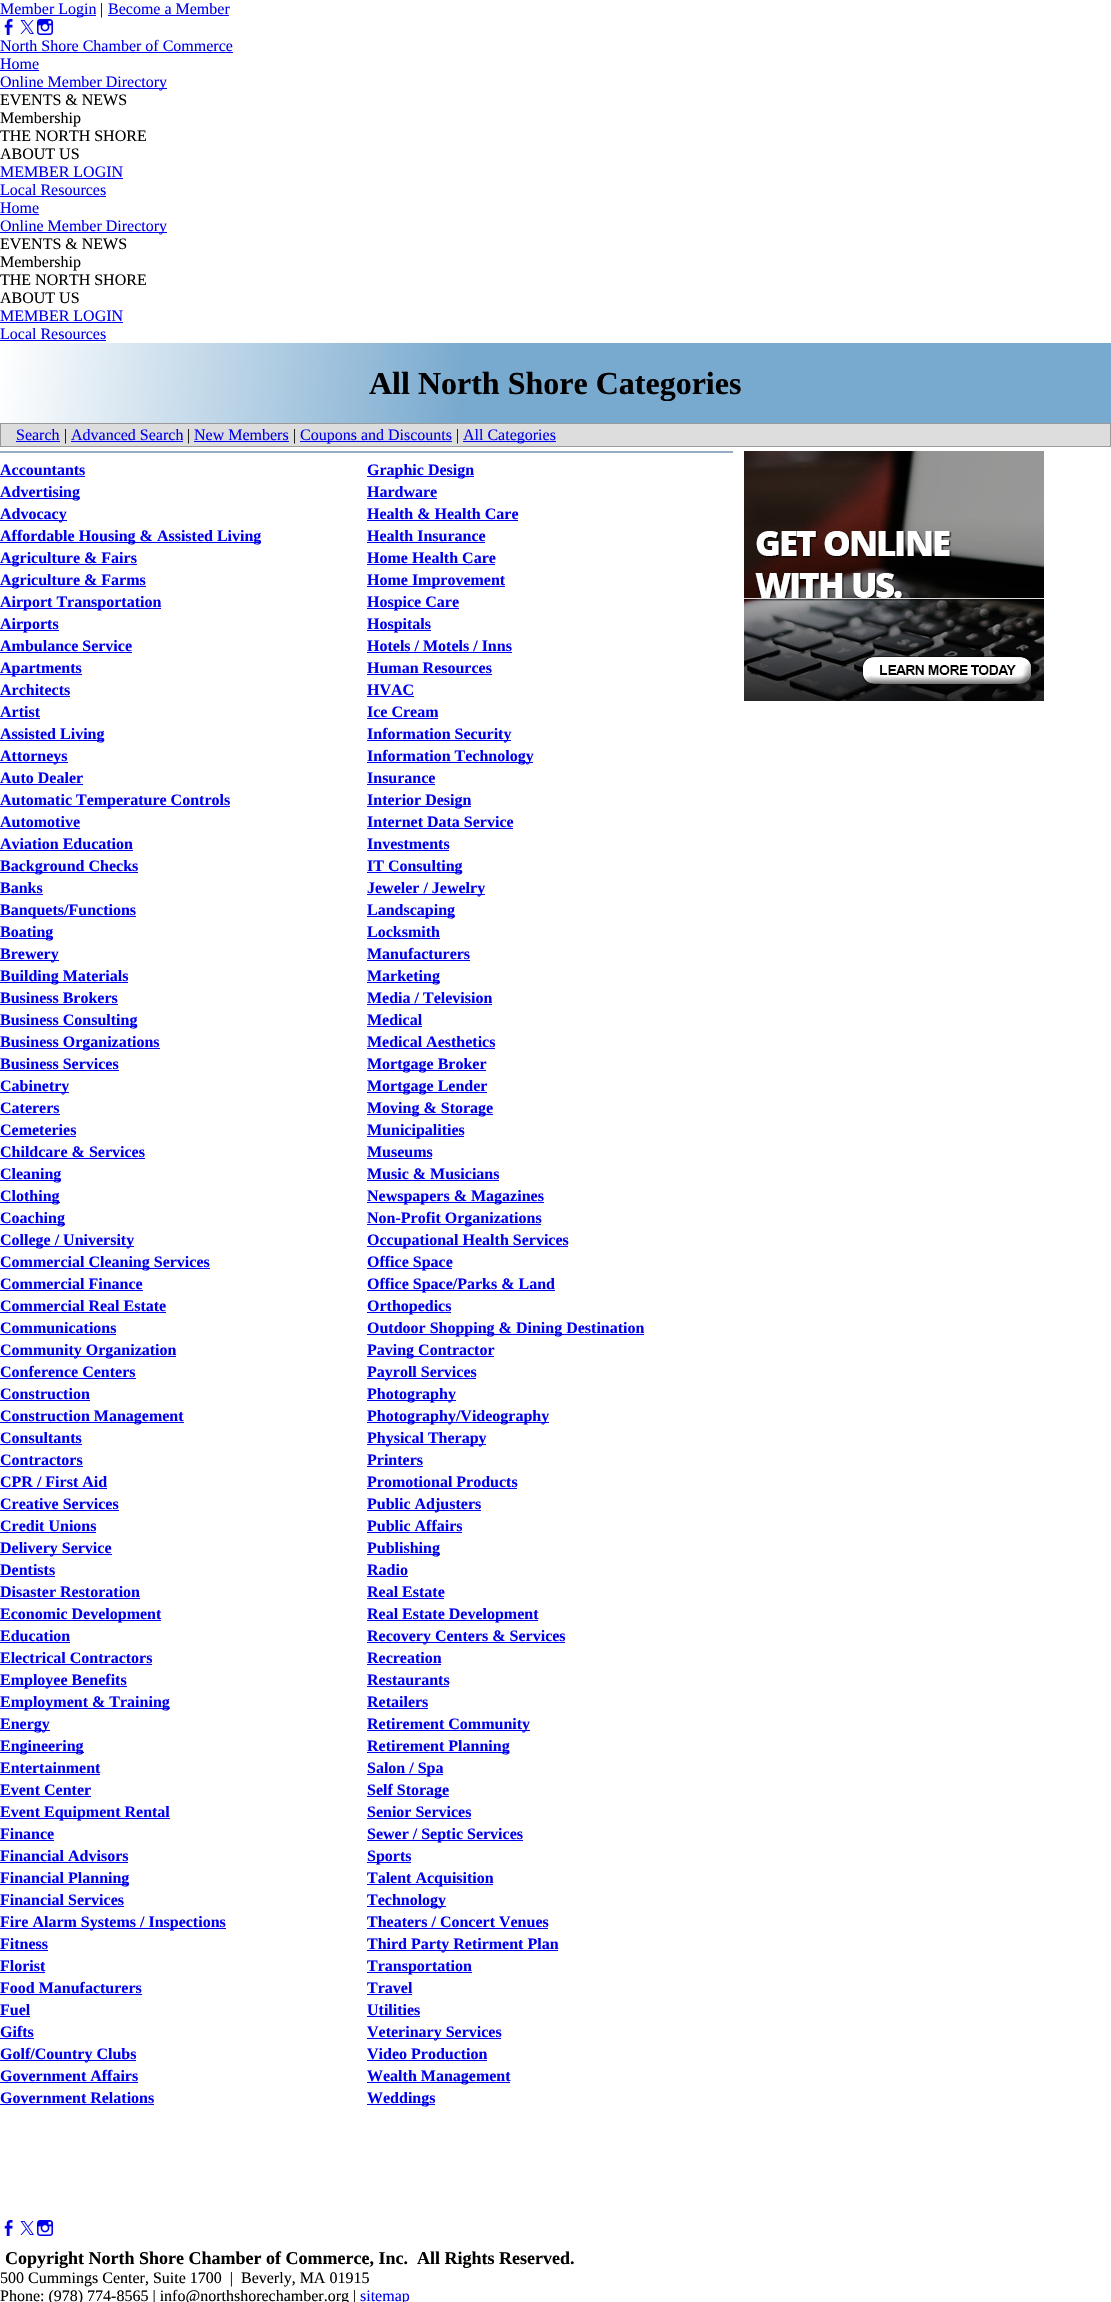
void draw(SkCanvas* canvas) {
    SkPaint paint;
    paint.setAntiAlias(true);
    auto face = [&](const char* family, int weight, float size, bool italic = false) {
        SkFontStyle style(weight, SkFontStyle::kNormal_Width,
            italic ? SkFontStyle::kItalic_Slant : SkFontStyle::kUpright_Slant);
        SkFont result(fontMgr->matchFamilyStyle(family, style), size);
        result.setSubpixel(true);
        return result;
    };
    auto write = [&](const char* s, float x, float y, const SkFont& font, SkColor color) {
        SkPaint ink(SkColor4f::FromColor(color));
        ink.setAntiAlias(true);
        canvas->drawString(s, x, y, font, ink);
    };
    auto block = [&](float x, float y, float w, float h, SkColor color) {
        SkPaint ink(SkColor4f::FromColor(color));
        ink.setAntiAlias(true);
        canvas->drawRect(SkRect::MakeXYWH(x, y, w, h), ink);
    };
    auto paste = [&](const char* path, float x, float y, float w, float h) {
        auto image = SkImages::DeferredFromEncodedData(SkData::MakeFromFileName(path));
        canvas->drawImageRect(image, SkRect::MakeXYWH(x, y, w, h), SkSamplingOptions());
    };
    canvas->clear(SK_ColorWHITE);
    block(0, 15, 96, 1, SkColorSetRGB(0, 0, 238));
    auto kFont1 = face("Liberation Serif", 400, 16);
    write("Member Login", 0, 14, kFont1, SkColorSetRGB(0, 0, 238));
    write("|", 100, 14, kFont1, SK_ColorBLACK);
    write("Become a Member", 108, 14, kFont1, SkColorSetRGB(0, 0, 238));
    block(108, 15, 121, 1, SkColorSetRGB(0, 0, 238));
    paste("pic1.png", 4, 19, 9, 16);
    paste("pic2.png", 20, 20, 14, 14);
    paste("pic3.png", 37, 19, 16, 16);
    write("North Shore Chamber of Commerce", 0, 51, kFont1, SkColorSetRGB(0, 0, 238));
    block(0, 52, 233, 1, SkColorSetRGB(0, 0, 238));
    write("Home", 0, 69, kFont1, SkColorSetRGB(0, 0, 238));
    block(0, 70, 39, 1, SkColorSetRGB(0, 0, 238));
    block(0, 88, 167, 1, SkColorSetRGB(0, 0, 238));
    write("Online Member Directory", 0, 87, kFont1, SkColorSetRGB(0, 0, 238));
    write("EVENTS & NEWS", 0, 105, kFont1, SK_ColorBLACK);
    write("Membership", 0, 123, kFont1, SK_ColorBLACK);
    write("THE NORTH SHORE", 0, 141, kFont1, SK_ColorBLACK);
    write("ABOUT US", 0, 159, kFont1, SK_ColorBLACK);
    write("MEMBER LOGIN", 0, 177, kFont1, SkColorSetRGB(0, 0, 238));
    block(0, 178, 123, 1, SkColorSetRGB(0, 0, 238));
    write("Local Resources", 0, 195, kFont1, SkColorSetRGB(0, 0, 238));
    block(0, 196, 106, 1, SkColorSetRGB(0, 0, 238));
    write("Home", 0, 213, kFont1, SkColorSetRGB(0, 0, 238));
    block(0, 214, 39, 1, SkColorSetRGB(0, 0, 238));
    block(0, 232, 167, 1, SkColorSetRGB(0, 0, 238));
    write("Online Member Directory", 0, 231, kFont1, SkColorSetRGB(0, 0, 238));
    write("EVENTS & NEWS", 0, 249, kFont1, SK_ColorBLACK);
    write("Membership", 0, 267, kFont1, SK_ColorBLACK);
    write("THE NORTH SHORE", 0, 285, kFont1, SK_ColorBLACK);
    write("ABOUT US", 0, 303, kFont1, SK_ColorBLACK);
    write("MEMBER LOGIN", 0, 321, kFont1, SkColorSetRGB(0, 0, 238));
    block(0, 322, 123, 1, SkColorSetRGB(0, 0, 238));
    write("Local Resources", 0, 339, kFont1, SkColorSetRGB(0, 0, 238));
    block(0, 340, 106, 1, SkColorSetRGB(0, 0, 238));
    {
        const SkColor colors[] = {SkColorSetRGB(120, 169, 206), SK_ColorWHITE};
        const float stops[] = {0.58f, 1};
        const SkPoint ends[] = {{1109, 441}, {1.9f, 325}};
        paint.setShader(SkGradientShader::MakeLinear(ends, colors, stops, 2, SkTileMode::kClamp));
        paint.setAlpha(255);
    }
    canvas->drawRect(SkRect::MakeXYWH(0, 343, 1111, 80), paint);
    auto kFont2 = face("Liberation Serif", 700, 32);
    write("All North Shore Categories", 369, 394, kFont2, SK_ColorBLACK);
    paint.setShader(nullptr);
    paint.setColor(SkColorSetRGB(221, 221, 221));
    canvas->drawRect(SkRect::MakeXYWH(0.5f, 423.5f, 1110, 23), paint);
    paint.setStyle(SkPaint::kStroke_Style);
    paint.setStrokeWidth(1);
    paint.setColor(SkColorSetRGB(153, 153, 153));
    canvas->drawRect(SkRect::MakeXYWH(0.5f, 423.5f, 1110, 23), paint);
    write("Search", 16, 440, kFont1, SkColorSetRGB(0, 0, 238));
    block(16, 441, 44, 1, SkColorSetRGB(0, 0, 238));
    write("|", 64, 440, kFont1, SK_ColorBLACK);
    write("Advanced Search", 71, 440, kFont1, SkColorSetRGB(0, 0, 238));
    block(71, 441, 112, 1, SkColorSetRGB(0, 0, 238));
    write("|", 187, 440, kFont1, SK_ColorBLACK);
    write("New Members", 194, 440, kFont1, SkColorSetRGB(0, 0, 238));
    block(194, 441, 95, 1, SkColorSetRGB(0, 0, 238));
    write("|", 293, 440, kFont1, SK_ColorBLACK);
    block(300, 441, 152, 1, SkColorSetRGB(0, 0, 238));
    write("Coupons and Discounts", 300, 440, kFont1, SkColorSetRGB(0, 0, 238));
    write("|", 456, 440, kFont1, SK_ColorBLACK);
    block(463, 441, 93, 1, SkColorSetRGB(0, 0, 238));
    write("All Categories", 463, 440, kFont1, SkColorSetRGB(0, 0, 238));
    block(0, 451, 733, 2, SkColorSetRGB(150, 172, 195));
    auto kFont3 = face("Liberation Serif", 700, 16);
    write("Accountants", 0, 475, kFont3, SkColorSetRGB(0, 0, 238));
    block(0, 476, 85, 1, SkColorSetRGB(0, 0, 238));
    block(0, 498, 80, 1, SkColorSetRGB(0, 0, 238));
    write("Advertising", 0, 497, kFont3, SkColorSetRGB(0, 0, 238));
    block(0, 520, 67, 1, SkColorSetRGB(0, 0, 238));
    write("Advocacy", 0, 519, kFont3, SkColorSetRGB(0, 0, 238));
    block(0, 542, 261, 1, SkColorSetRGB(0, 0, 238));
    write("Affordable Housing & Assisted Living", 0, 541, kFont3, SkColorSetRGB(0, 0, 238));
    block(0, 564, 137, 1, SkColorSetRGB(0, 0, 238));
    write("Agriculture & Fairs", 0, 563, kFont3, SkColorSetRGB(0, 0, 238));
    block(0, 586, 146, 1, SkColorSetRGB(0, 0, 238));
    write("Agriculture & Farms", 0, 585, kFont3, SkColorSetRGB(0, 0, 238));
    block(0, 608, 161, 1, SkColorSetRGB(0, 0, 238));
    write("Airport Transportation", 0, 607, kFont3, SkColorSetRGB(0, 0, 238));
    block(0, 630, 59, 1, SkColorSetRGB(0, 0, 238));
    write("Airports", 0, 629, kFont3, SkColorSetRGB(0, 0, 238));
    write("Ambulance Service", 0, 651, kFont3, SkColorSetRGB(0, 0, 238));
    block(0, 652, 132, 1, SkColorSetRGB(0, 0, 238));
    block(0, 674, 82, 1, SkColorSetRGB(0, 0, 238));
    write("Apartments", 0, 673, kFont3, SkColorSetRGB(0, 0, 238));
    write("Architects", 0, 695, kFont3, SkColorSetRGB(0, 0, 238));
    block(0, 696, 70, 1, SkColorSetRGB(0, 0, 238));
    write("Artist", 0, 717, kFont3, SkColorSetRGB(0, 0, 238));
    block(0, 718, 40, 1, SkColorSetRGB(0, 0, 238));
    block(0, 740, 104, 1, SkColorSetRGB(0, 0, 238));
    write("Assisted Living", 0, 739, kFont3, SkColorSetRGB(0, 0, 238));
    block(0, 762, 68, 1, SkColorSetRGB(0, 0, 238));
    write("Attorneys", 0, 761, kFont3, SkColorSetRGB(0, 0, 238));
    write("Auto Dealer", 0, 783, kFont3, SkColorSetRGB(0, 0, 238));
    block(0, 784, 83, 1, SkColorSetRGB(0, 0, 238));
    block(0, 806, 230, 1, SkColorSetRGB(0, 0, 238));
    write("Automatic Temperature Controls", 0, 805, kFont3, SkColorSetRGB(0, 0, 238));
    write("Automotive", 0, 827, kFont3, SkColorSetRGB(0, 0, 238));
    block(0, 828, 80, 1, SkColorSetRGB(0, 0, 238));
    write("Aviation Education", 0, 849, kFont3, SkColorSetRGB(0, 0, 238));
    block(0, 850, 133, 1, SkColorSetRGB(0, 0, 238));
    block(0, 872, 138, 1, SkColorSetRGB(0, 0, 238));
    write("Background Checks", 0, 871, kFont3, SkColorSetRGB(0, 0, 238));
    write("Banks", 0, 893, kFont3, SkColorSetRGB(0, 0, 238));
    block(0, 894, 43, 1, SkColorSetRGB(0, 0, 238));
    block(0, 916, 136, 1, SkColorSetRGB(0, 0, 238));
    write("Banquets/Functions", 0, 915, kFont3, SkColorSetRGB(0, 0, 238));
    block(0, 938, 53, 1, SkColorSetRGB(0, 0, 238));
    write("Boating", 0, 937, kFont3, SkColorSetRGB(0, 0, 238));
    block(0, 960, 59, 1, SkColorSetRGB(0, 0, 238));
    write("Brewery", 0, 959, kFont3, SkColorSetRGB(0, 0, 238));
    block(0, 982, 128, 1, SkColorSetRGB(0, 0, 238));
    write("Building Materials", 0, 981, kFont3, SkColorSetRGB(0, 0, 238));
    write("Business Brokers", 0, 1003, kFont3, SkColorSetRGB(0, 0, 238));
    block(0, 1004, 118, 1, SkColorSetRGB(0, 0, 238));
    block(0, 1026, 137, 1, SkColorSetRGB(0, 0, 238));
    write("Business Consulting", 0, 1025, kFont3, SkColorSetRGB(0, 0, 238));
    block(0, 1048, 160, 1, SkColorSetRGB(0, 0, 238));
    write("Business Organizations", 0, 1047, kFont3, SkColorSetRGB(0, 0, 238));
    write("Business Services", 0, 1069, kFont3, SkColorSetRGB(0, 0, 238));
    block(0, 1070, 119, 1, SkColorSetRGB(0, 0, 238));
    block(0, 1092, 69, 1, SkColorSetRGB(0, 0, 238));
    write("Cabinetry", 0, 1091, kFont3, SkColorSetRGB(0, 0, 238));
    write("Caterers", 0, 1113, kFont3, SkColorSetRGB(0, 0, 238));
    block(0, 1114, 60, 1, SkColorSetRGB(0, 0, 238));
    write("Cemeteries", 0, 1135, kFont3, SkColorSetRGB(0, 0, 238));
    block(0, 1136, 76, 1, SkColorSetRGB(0, 0, 238));
    write("Childcare & Services", 0, 1157, kFont3, SkColorSetRGB(0, 0, 238));
    block(0, 1158, 145, 1, SkColorSetRGB(0, 0, 238));
    block(0, 1180, 61, 1, SkColorSetRGB(0, 0, 238));
    write("Cleaning", 0, 1179, kFont3, SkColorSetRGB(0, 0, 238));
    block(0, 1202, 60, 1, SkColorSetRGB(0, 0, 238));
    write("Clothing", 0, 1201, kFont3, SkColorSetRGB(0, 0, 238));
    block(0, 1224, 65, 1, SkColorSetRGB(0, 0, 238));
    write("Coaching", 0, 1223, kFont3, SkColorSetRGB(0, 0, 238));
    block(0, 1246, 134, 1, SkColorSetRGB(0, 0, 238));
    write("College / University", 0, 1245, kFont3, SkColorSetRGB(0, 0, 238));
    block(0, 1268, 210, 1, SkColorSetRGB(0, 0, 238));
    write("Commercial Cleaning Services", 0, 1267, kFont3, SkColorSetRGB(0, 0, 238));
    write("Commercial Finance", 0, 1289, kFont3, SkColorSetRGB(0, 0, 238));
    block(0, 1290, 143, 1, SkColorSetRGB(0, 0, 238));
    write("Commercial Real Estate", 0, 1311, kFont3, SkColorSetRGB(0, 0, 238));
    block(0, 1312, 166, 1, SkColorSetRGB(0, 0, 238));
    write("Communications", 0, 1333, kFont3, SkColorSetRGB(0, 0, 238));
    block(0, 1334, 116, 1, SkColorSetRGB(0, 0, 238));
    block(0, 1356, 176, 1, SkColorSetRGB(0, 0, 238));
    write("Community Organization", 0, 1355, kFont3, SkColorSetRGB(0, 0, 238));
    write("Conference Centers", 0, 1377, kFont3, SkColorSetRGB(0, 0, 238));
    block(0, 1378, 136, 1, SkColorSetRGB(0, 0, 238));
    write("Construction", 0, 1399, kFont3, SkColorSetRGB(0, 0, 238));
    block(0, 1400, 90, 1, SkColorSetRGB(0, 0, 238));
    block(0, 1422, 184, 1, SkColorSetRGB(0, 0, 238));
    write("Construction Management", 0, 1421, kFont3, SkColorSetRGB(0, 0, 238));
    write("Consultants", 0, 1443, kFont3, SkColorSetRGB(0, 0, 238));
    block(0, 1444, 82, 1, SkColorSetRGB(0, 0, 238));
    write("Contractors", 0, 1465, kFont3, SkColorSetRGB(0, 0, 238));
    block(0, 1466, 83, 1, SkColorSetRGB(0, 0, 238));
    write("CPR / First Aid", 0, 1487, kFont3, SkColorSetRGB(0, 0, 238));
    block(0, 1488, 107, 1, SkColorSetRGB(0, 0, 238));
    write("Creative Services", 0, 1509, kFont3, SkColorSetRGB(0, 0, 238));
    block(0, 1510, 119, 1, SkColorSetRGB(0, 0, 238));
    write("Credit Unions", 0, 1531, kFont3, SkColorSetRGB(0, 0, 238));
    block(0, 1532, 96, 1, SkColorSetRGB(0, 0, 238));
    block(0, 1554, 112, 1, SkColorSetRGB(0, 0, 238));
    write("Delivery Service", 0, 1553, kFont3, SkColorSetRGB(0, 0, 238));
    write("Dentists", 0, 1575, kFont3, SkColorSetRGB(0, 0, 238));
    block(0, 1576, 55, 1, SkColorSetRGB(0, 0, 238));
    write("Disaster Restoration", 0, 1597, kFont3, SkColorSetRGB(0, 0, 238));
    block(0, 1598, 140, 1, SkColorSetRGB(0, 0, 238));
    block(0, 1620, 161, 1, SkColorSetRGB(0, 0, 238));
    write("Economic Development", 0, 1619, kFont3, SkColorSetRGB(0, 0, 238));
    write("Education", 0, 1641, kFont3, SkColorSetRGB(0, 0, 238));
    block(0, 1642, 70, 1, SkColorSetRGB(0, 0, 238));
    write("Electrical Contractors", 0, 1663, kFont3, SkColorSetRGB(0, 0, 238));
    block(0, 1664, 152, 1, SkColorSetRGB(0, 0, 238));
    block(0, 1686, 127, 1, SkColorSetRGB(0, 0, 238));
    write("Employee Benefits", 0, 1685, kFont3, SkColorSetRGB(0, 0, 238));
    block(0, 1708, 170, 1, SkColorSetRGB(0, 0, 238));
    write("Employment & Training", 0, 1707, kFont3, SkColorSetRGB(0, 0, 238));
    block(0, 1730, 50, 1, SkColorSetRGB(0, 0, 238));
    write("Energy", 0, 1729, kFont3, SkColorSetRGB(0, 0, 238));
    block(0, 1752, 84, 1, SkColorSetRGB(0, 0, 238));
    write("Engineering", 0, 1751, kFont3, SkColorSetRGB(0, 0, 238));
    write("Entertainment", 0, 1773, kFont3, SkColorSetRGB(0, 0, 238));
    block(0, 1774, 100, 1, SkColorSetRGB(0, 0, 238));
    write("Event Center", 0, 1795, kFont3, SkColorSetRGB(0, 0, 238));
    block(0, 1796, 91, 1, SkColorSetRGB(0, 0, 238));
    block(0, 1818, 170, 1, SkColorSetRGB(0, 0, 238));
    write("Event Equipment Rental", 0, 1817, kFont3, SkColorSetRGB(0, 0, 238));
    write("Finance", 0, 1839, kFont3, SkColorSetRGB(0, 0, 238));
    block(0, 1840, 54, 1, SkColorSetRGB(0, 0, 238));
    write("Financial Advisors", 0, 1861, kFont3, SkColorSetRGB(0, 0, 238));
    block(0, 1862, 128, 1, SkColorSetRGB(0, 0, 238));
    block(0, 1884, 129, 1, SkColorSetRGB(0, 0, 238));
    write("Financial Planning", 0, 1883, kFont3, SkColorSetRGB(0, 0, 238));
    write("Financial Services", 0, 1905, kFont3, SkColorSetRGB(0, 0, 238));
    block(0, 1906, 124, 1, SkColorSetRGB(0, 0, 238));
    block(0, 1928, 226, 1, SkColorSetRGB(0, 0, 238));
    write("Fire Alarm Systems / Inspections", 0, 1927, kFont3, SkColorSetRGB(0, 0, 238));
    write("Fitness", 0, 1949, kFont3, SkColorSetRGB(0, 0, 238));
    block(0, 1950, 48, 1, SkColorSetRGB(0, 0, 238));
    write("Florist", 0, 1971, kFont3, SkColorSetRGB(0, 0, 238));
    block(0, 1972, 45, 1, SkColorSetRGB(0, 0, 238));
    write("Food Manufacturers", 0, 1993, kFont3, SkColorSetRGB(0, 0, 238));
    block(0, 1994, 142, 1, SkColorSetRGB(0, 0, 238));
    write("Fuel", 0, 2015, kFont3, SkColorSetRGB(0, 0, 238));
    block(0, 2016, 30, 1, SkColorSetRGB(0, 0, 238));
    write("Gifts", 0, 2037, kFont3, SkColorSetRGB(0, 0, 238));
    block(0, 2038, 34, 1, SkColorSetRGB(0, 0, 238));
    block(0, 2060, 136, 1, SkColorSetRGB(0, 0, 238));
    write("Golf/Country Clubs", 0, 2059, kFont3, SkColorSetRGB(0, 0, 238));
    write("Government Affairs", 0, 2081, kFont3, SkColorSetRGB(0, 0, 238));
    block(0, 2082, 138, 1, SkColorSetRGB(0, 0, 238));
    write("Government Relations", 0, 2103, kFont3, SkColorSetRGB(0, 0, 238));
    block(0, 2104, 154, 1, SkColorSetRGB(0, 0, 238));
    block(367, 476, 107, 1, SkColorSetRGB(0, 0, 238));
    write("Graphic Design", 367, 475, kFont3, SkColorSetRGB(0, 0, 238));
    write("Hardware", 367, 497, kFont3, SkColorSetRGB(0, 0, 238));
    block(367, 498, 70, 1, SkColorSetRGB(0, 0, 238));
    write("Health & Health Care", 367, 519, kFont3, SkColorSetRGB(0, 0, 238));
    block(367, 520, 151, 1, SkColorSetRGB(0, 0, 238));
    write("Health Insurance", 367, 541, kFont3, SkColorSetRGB(0, 0, 238));
    block(367, 542, 118, 1, SkColorSetRGB(0, 0, 238));
    write("Home Health Care", 367, 563, kFont3, SkColorSetRGB(0, 0, 238));
    block(367, 564, 128, 1, SkColorSetRGB(0, 0, 238));
    block(367, 586, 138, 1, SkColorSetRGB(0, 0, 238));
    write("Home Improvement", 367, 585, kFont3, SkColorSetRGB(0, 0, 238));
    block(367, 608, 92, 1, SkColorSetRGB(0, 0, 238));
    write("Hospice Care", 367, 607, kFont3, SkColorSetRGB(0, 0, 238));
    block(367, 630, 64, 1, SkColorSetRGB(0, 0, 238));
    write("Hospitals", 367, 629, kFont3, SkColorSetRGB(0, 0, 238));
    write("Hotels / Motels / Inns", 367, 651, kFont3, SkColorSetRGB(0, 0, 238));
    block(367, 652, 145, 1, SkColorSetRGB(0, 0, 238));
    write("Human Resources", 367, 673, kFont3, SkColorSetRGB(0, 0, 238));
    block(367, 674, 125, 1, SkColorSetRGB(0, 0, 238));
    write("HVAC", 367, 695, kFont3, SkColorSetRGB(0, 0, 238));
    block(367, 696, 47, 1, SkColorSetRGB(0, 0, 238));
    write("Ice Cream", 367, 717, kFont3, SkColorSetRGB(0, 0, 238));
    block(367, 718, 71, 1, SkColorSetRGB(0, 0, 238));
    block(367, 740, 144, 1, SkColorSetRGB(0, 0, 238));
    write("Information Security", 367, 739, kFont3, SkColorSetRGB(0, 0, 238));
    block(367, 762, 166, 1, SkColorSetRGB(0, 0, 238));
    write("Information Technology", 367, 761, kFont3, SkColorSetRGB(0, 0, 238));
    write("Insurance", 367, 783, kFont3, SkColorSetRGB(0, 0, 238));
    block(367, 784, 68, 1, SkColorSetRGB(0, 0, 238));
    block(367, 806, 104, 1, SkColorSetRGB(0, 0, 238));
    write("Interior Design", 367, 805, kFont3, SkColorSetRGB(0, 0, 238));
    write("Internet Data Service", 367, 827, kFont3, SkColorSetRGB(0, 0, 238));
    block(367, 828, 146, 1, SkColorSetRGB(0, 0, 238));
    write("Investments", 367, 849, kFont3, SkColorSetRGB(0, 0, 238));
    block(367, 850, 82, 1, SkColorSetRGB(0, 0, 238));
    block(367, 872, 95, 1, SkColorSetRGB(0, 0, 238));
    write("IT Consulting", 367, 871, kFont3, SkColorSetRGB(0, 0, 238));
    block(367, 894, 118, 1, SkColorSetRGB(0, 0, 238));
    write("Jeweler / Jewelry", 367, 893, kFont3, SkColorSetRGB(0, 0, 238));
    block(367, 916, 88, 1, SkColorSetRGB(0, 0, 238));
    write("Landscaping", 367, 915, kFont3, SkColorSetRGB(0, 0, 238));
    write("Locksmith", 367, 937, kFont3, SkColorSetRGB(0, 0, 238));
    block(367, 938, 73, 1, SkColorSetRGB(0, 0, 238));
    write("Manufacturers", 367, 959, kFont3, SkColorSetRGB(0, 0, 238));
    block(367, 960, 103, 1, SkColorSetRGB(0, 0, 238));
    block(367, 982, 73, 1, SkColorSetRGB(0, 0, 238));
    write("Marketing", 367, 981, kFont3, SkColorSetRGB(0, 0, 238));
    write("Media / Television", 367, 1003, kFont3, SkColorSetRGB(0, 0, 238));
    block(367, 1004, 125, 1, SkColorSetRGB(0, 0, 238));
    write("Medical", 367, 1025, kFont3, SkColorSetRGB(0, 0, 238));
    block(367, 1026, 55, 1, SkColorSetRGB(0, 0, 238));
    write("Medical Aesthetics", 367, 1047, kFont3, SkColorSetRGB(0, 0, 238));
    block(367, 1048, 128, 1, SkColorSetRGB(0, 0, 238));
    block(367, 1070, 119, 1, SkColorSetRGB(0, 0, 238));
    write("Mortgage Broker", 367, 1069, kFont3, SkColorSetRGB(0, 0, 238));
    block(367, 1092, 120, 1, SkColorSetRGB(0, 0, 238));
    write("Mortgage Lender", 367, 1091, kFont3, SkColorSetRGB(0, 0, 238));
    block(367, 1114, 126, 1, SkColorSetRGB(0, 0, 238));
    write("Moving & Storage", 367, 1113, kFont3, SkColorSetRGB(0, 0, 238));
    block(367, 1136, 97, 1, SkColorSetRGB(0, 0, 238));
    write("Municipalities", 367, 1135, kFont3, SkColorSetRGB(0, 0, 238));
    write("Museums", 367, 1157, kFont3, SkColorSetRGB(0, 0, 238));
    block(367, 1158, 65, 1, SkColorSetRGB(0, 0, 238));
    write("Music & Musicians", 367, 1179, kFont3, SkColorSetRGB(0, 0, 238));
    block(367, 1180, 132, 1, SkColorSetRGB(0, 0, 238));
    block(367, 1202, 177, 1, SkColorSetRGB(0, 0, 238));
    write("Newspapers & Magazines", 367, 1201, kFont3, SkColorSetRGB(0, 0, 238));
    block(367, 1224, 174, 1, SkColorSetRGB(0, 0, 238));
    write("Non-Profit Organizations", 367, 1223, kFont3, SkColorSetRGB(0, 0, 238));
    block(367, 1246, 201, 1, SkColorSetRGB(0, 0, 238));
    write("Occupational Health Services", 367, 1245, kFont3, SkColorSetRGB(0, 0, 238));
    block(367, 1268, 85, 1, SkColorSetRGB(0, 0, 238));
    write("Office Space", 367, 1267, kFont3, SkColorSetRGB(0, 0, 238));
    block(367, 1290, 188, 1, SkColorSetRGB(0, 0, 238));
    write("Office Space/Parks & Land", 367, 1289, kFont3, SkColorSetRGB(0, 0, 238));
    block(367, 1312, 84, 1, SkColorSetRGB(0, 0, 238));
    write("Orthopedics", 367, 1311, kFont3, SkColorSetRGB(0, 0, 238));
    block(367, 1334, 277, 1, SkColorSetRGB(0, 0, 238));
    write("Outdoor Shopping & Dining Destination", 367, 1333, kFont3, SkColorSetRGB(0, 0, 238));
    block(367, 1356, 127, 1, SkColorSetRGB(0, 0, 238));
    write("Paving Contractor", 367, 1355, kFont3, SkColorSetRGB(0, 0, 238));
    block(367, 1378, 109, 1, SkColorSetRGB(0, 0, 238));
    write("Payroll Services", 367, 1377, kFont3, SkColorSetRGB(0, 0, 238));
    block(367, 1400, 89, 1, SkColorSetRGB(0, 0, 238));
    write("Photography", 367, 1399, kFont3, SkColorSetRGB(0, 0, 238));
    block(367, 1422, 182, 1, SkColorSetRGB(0, 0, 238));
    write("Photography/Videography", 367, 1421, kFont3, SkColorSetRGB(0, 0, 238));
    block(367, 1444, 119, 1, SkColorSetRGB(0, 0, 238));
    write("Physical Therapy", 367, 1443, kFont3, SkColorSetRGB(0, 0, 238));
    write("Printers", 367, 1465, kFont3, SkColorSetRGB(0, 0, 238));
    block(367, 1466, 56, 1, SkColorSetRGB(0, 0, 238));
    write("Promotional Products", 367, 1487, kFont3, SkColorSetRGB(0, 0, 238));
    block(367, 1488, 150, 1, SkColorSetRGB(0, 0, 238));
    block(367, 1510, 114, 1, SkColorSetRGB(0, 0, 238));
    write("Public Adjusters", 367, 1509, kFont3, SkColorSetRGB(0, 0, 238));
    write("Public Affairs", 367, 1531, kFont3, SkColorSetRGB(0, 0, 238));
    block(367, 1532, 95, 1, SkColorSetRGB(0, 0, 238));
    block(367, 1554, 73, 1, SkColorSetRGB(0, 0, 238));
    write("Publishing", 367, 1553, kFont3, SkColorSetRGB(0, 0, 238));
    write("Radio", 367, 1575, kFont3, SkColorSetRGB(0, 0, 238));
    block(367, 1576, 41, 1, SkColorSetRGB(0, 0, 238));
    write("Real Estate", 367, 1597, kFont3, SkColorSetRGB(0, 0, 238));
    block(367, 1598, 77, 1, SkColorSetRGB(0, 0, 238));
    block(367, 1620, 171, 1, SkColorSetRGB(0, 0, 238));
    write("Real Estate Development", 367, 1619, kFont3, SkColorSetRGB(0, 0, 238));
    block(367, 1642, 198, 1, SkColorSetRGB(0, 0, 238));
    write("Recovery Centers & Services", 367, 1641, kFont3, SkColorSetRGB(0, 0, 238));
    write("Recreation", 367, 1663, kFont3, SkColorSetRGB(0, 0, 238));
    block(367, 1664, 74, 1, SkColorSetRGB(0, 0, 238));
    write("Restaurants", 367, 1685, kFont3, SkColorSetRGB(0, 0, 238));
    block(367, 1686, 82, 1, SkColorSetRGB(0, 0, 238));
    write("Retailers", 367, 1707, kFont3, SkColorSetRGB(0, 0, 238));
    block(367, 1708, 61, 1, SkColorSetRGB(0, 0, 238));
    block(367, 1730, 163, 1, SkColorSetRGB(0, 0, 238));
    write("Retirement Community", 367, 1729, kFont3, SkColorSetRGB(0, 0, 238));
    block(367, 1752, 142, 1, SkColorSetRGB(0, 0, 238));
    write("Retirement Planning", 367, 1751, kFont3, SkColorSetRGB(0, 0, 238));
    block(367, 1774, 76, 1, SkColorSetRGB(0, 0, 238));
    write("Salon / Spa", 367, 1773, kFont3, SkColorSetRGB(0, 0, 238));
    block(367, 1796, 82, 1, SkColorSetRGB(0, 0, 238));
    write("Self Storage", 367, 1795, kFont3, SkColorSetRGB(0, 0, 238));
    write("Senior Services", 367, 1817, kFont3, SkColorSetRGB(0, 0, 238));
    block(367, 1818, 104, 1, SkColorSetRGB(0, 0, 238));
    block(367, 1840, 156, 1, SkColorSetRGB(0, 0, 238));
    write("Sewer / Septic Services", 367, 1839, kFont3, SkColorSetRGB(0, 0, 238));
    block(367, 1862, 44, 1, SkColorSetRGB(0, 0, 238));
    write("Sports", 367, 1861, kFont3, SkColorSetRGB(0, 0, 238));
    block(367, 1884, 126, 1, SkColorSetRGB(0, 0, 238));
    write("Talent Acquisition", 367, 1883, kFont3, SkColorSetRGB(0, 0, 238));
    block(367, 1906, 79, 1, SkColorSetRGB(0, 0, 238));
    write("Technology", 367, 1905, kFont3, SkColorSetRGB(0, 0, 238));
    write("Theaters / Concert Venues", 367, 1927, kFont3, SkColorSetRGB(0, 0, 238));
    block(367, 1928, 181, 1, SkColorSetRGB(0, 0, 238));
    block(367, 1950, 191, 1, SkColorSetRGB(0, 0, 238));
    write("Third Party Retirment Plan", 367, 1949, kFont3, SkColorSetRGB(0, 0, 238));
    block(367, 1972, 105, 1, SkColorSetRGB(0, 0, 238));
    write("Transportation", 367, 1971, kFont3, SkColorSetRGB(0, 0, 238));
    write("Travel", 367, 1993, kFont3, SkColorSetRGB(0, 0, 238));
    block(367, 1994, 45, 1, SkColorSetRGB(0, 0, 238));
    write("Utilities", 367, 2015, kFont3, SkColorSetRGB(0, 0, 238));
    block(367, 2016, 53, 1, SkColorSetRGB(0, 0, 238));
    block(367, 2038, 134, 1, SkColorSetRGB(0, 0, 238));
    write("Veterinary Services", 367, 2037, kFont3, SkColorSetRGB(0, 0, 238));
    write("Video Production", 367, 2059, kFont3, SkColorSetRGB(0, 0, 238));
    block(367, 2060, 120, 1, SkColorSetRGB(0, 0, 238));
    block(367, 2082, 143, 1, SkColorSetRGB(0, 0, 238));
    write("Wealth Management", 367, 2081, kFont3, SkColorSetRGB(0, 0, 238));
    block(367, 2104, 68, 1, SkColorSetRGB(0, 0, 238));
    write("Weddings", 367, 2103, kFont3, SkColorSetRGB(0, 0, 238));
    paste("pic4.png", 744, 451, 300, 250);
    paste("pic1.png", 4, 2220, 9, 16);
    paste("pic2.png", 20, 2221, 14, 14);
    paste("pic3.png", 37, 2220, 16, 16);
    auto kFont4 = face("Liberation Serif", 700, 18);
    write("Copyright North Shore Chamber of Commerce, Inc.  All Rights Reserved.", 5, 2264, kFont4, SK_ColorBLACK);
    write("500 Cummings Center, Suite 1700  |  Beverly, MA 01915", 0, 2283, kFont1, SK_ColorBLACK);
    write("Phone: (978) 774-8565 | info@northshorechamber.org |", 0, 2301, kFont1, SK_ColorBLACK);
    write("sitemap", 360, 2301, kFont1, SkColorSetRGB(0, 0, 238));
}
